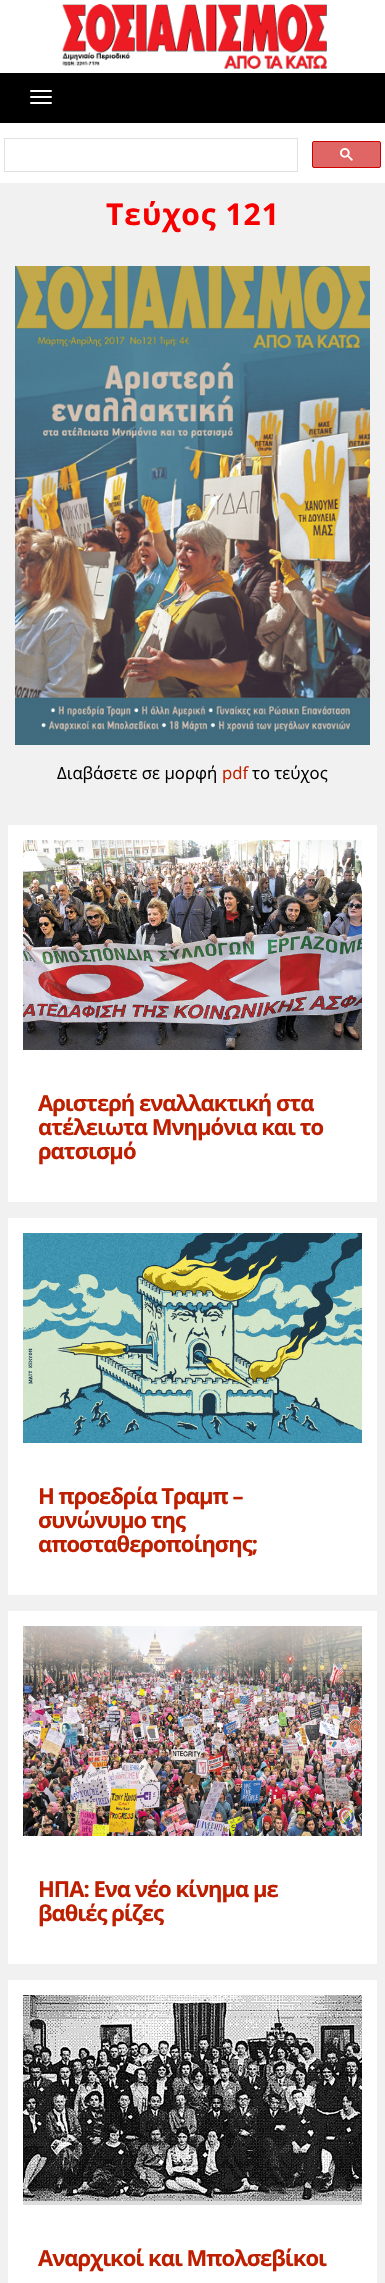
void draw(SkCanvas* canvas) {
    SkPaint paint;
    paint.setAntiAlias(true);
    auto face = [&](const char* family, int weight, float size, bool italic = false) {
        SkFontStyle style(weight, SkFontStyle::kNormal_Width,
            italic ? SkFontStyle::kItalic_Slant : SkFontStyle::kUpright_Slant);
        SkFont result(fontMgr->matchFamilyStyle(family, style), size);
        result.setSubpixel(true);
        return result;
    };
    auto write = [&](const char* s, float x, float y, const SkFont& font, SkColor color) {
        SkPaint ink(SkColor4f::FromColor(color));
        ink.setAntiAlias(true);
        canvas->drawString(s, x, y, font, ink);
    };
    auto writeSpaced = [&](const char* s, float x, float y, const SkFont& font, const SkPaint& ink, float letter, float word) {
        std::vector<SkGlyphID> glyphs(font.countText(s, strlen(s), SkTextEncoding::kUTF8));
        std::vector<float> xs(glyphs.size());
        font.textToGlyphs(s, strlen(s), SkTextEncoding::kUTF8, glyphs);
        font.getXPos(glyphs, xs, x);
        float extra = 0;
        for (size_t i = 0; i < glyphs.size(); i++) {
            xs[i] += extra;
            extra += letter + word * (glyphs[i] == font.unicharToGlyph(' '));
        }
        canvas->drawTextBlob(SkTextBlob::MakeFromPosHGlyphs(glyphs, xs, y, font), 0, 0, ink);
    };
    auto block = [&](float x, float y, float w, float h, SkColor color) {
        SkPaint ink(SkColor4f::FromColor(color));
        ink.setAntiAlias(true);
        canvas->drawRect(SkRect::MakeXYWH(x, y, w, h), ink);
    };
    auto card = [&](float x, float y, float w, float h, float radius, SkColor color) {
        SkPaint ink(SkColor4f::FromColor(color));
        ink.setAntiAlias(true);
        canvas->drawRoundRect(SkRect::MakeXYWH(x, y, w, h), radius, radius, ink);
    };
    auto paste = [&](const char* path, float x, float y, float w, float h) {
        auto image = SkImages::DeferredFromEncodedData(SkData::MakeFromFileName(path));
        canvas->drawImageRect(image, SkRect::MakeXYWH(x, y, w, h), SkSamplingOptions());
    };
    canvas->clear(SK_ColorWHITE);
    paste("pic1.png", 62, 4, 265, 65);
    block(0, 73, 385, 50, SK_ColorBLACK);
    card(30, 90, 22, 2, 1, SK_ColorWHITE);
    card(30, 96, 22, 2, 1, SK_ColorWHITE);
    card(30, 102, 22, 2, 1, SK_ColorWHITE);
    paint.setStyle(SkPaint::kStroke_Style);
    paint.setStrokeWidth(1);
    paint.setColor(SkColorSetRGB(223, 225, 229));
    canvas->drawRect(SkRect::MakeXYWH(4.5f, 138.5f, 293, 33), paint);
    paint.setStyle(SkPaint::kFill_Style);
    paint.setColor(SkColorSetRGB(224, 102, 102));
    canvas->drawRoundRect(SkRect::MakeXYWH(312.5f, 141.5f, 68, 26), 1.5f, 1.5f, paint);
    paint.setStyle(SkPaint::kStroke_Style);
    paint.setColor(SkColorSetRGB(204, 0, 0));
    canvas->drawRoundRect(SkRect::MakeXYWH(312.5f, 141.5f, 68, 26), 1.5f, 1.5f, paint);
    paste("pic2.png", 340, 148, 13, 13);
    block(0, 183, 385, 2100, SkColorSetRGB(241, 241, 241));
    auto kFont1 = face("Open Sans", 700, 30);
    paint.setStyle(SkPaint::kFill_Style);
    paint.setColor(SkColorSetRGB(249, 0, 0));
    writeSpaced("Τεύχος 121", 106, 225, kFont1, paint, 1, 0);
    paste("pic3.png", 15, 266, 355, 479);
    auto kFont2 = face("Open Sans", 400, 16.75f);
    write("Διαβάσετε σε μορφή", 57, 779, kFont2, SK_ColorBLACK);
    write("pdf", 222, 779, kFont2, SkColorSetRGB(189, 31, 0));
    write("το τεύχος", 252, 779, kFont2, SK_ColorBLACK);
    block(8, 825, 369, 377, SK_ColorWHITE);
    paste("pic4.png", 23, 840, 339, 210);
    auto kFont3 = face("Open Sans", 700, 22);
    paint.setColor(SkColorSetRGB(189, 31, 0));
    writeSpaced("Αριστερή εναλλακτική στα", 38, 1111, kFont3, paint, -1, 0);
    writeSpaced("ατέλειωτα Μνημόνια και το", 38, 1135, kFont3, paint, -1, 0);
    writeSpaced("ρατσισμό", 38, 1159, kFont3, paint, -1, 0);
    block(8, 1218, 369, 377, SK_ColorWHITE);
    paste("pic5.png", 23, 1233, 339, 210);
    writeSpaced("Η προεδρία Τραμπ –", 38, 1504, kFont3, paint, -1, 0);
    writeSpaced("συνώνυμο της", 38, 1528, kFont3, paint, -1, 0);
    writeSpaced("αποσταθεροποίησης;", 38, 1552, kFont3, paint, -1, 0);
    block(8, 1611, 369, 353, SK_ColorWHITE);
    paste("pic6.png", 23, 1626, 339, 210);
    writeSpaced("ΗΠΑ: Ενα νέο κίνημα με", 38, 1897, kFont3, paint, -1, 0);
    writeSpaced("βαθιές ρίζες", 38, 1921, kFont3, paint, -1, 0);
    block(8, 1980, 369, 303, SK_ColorWHITE);
    paste("pic7.png", 23, 1995, 339, 210);
    writeSpaced("Αναρχικοί και Μπολσεβίκοι", 38, 2266, kFont3, paint, -1, 0);
}
